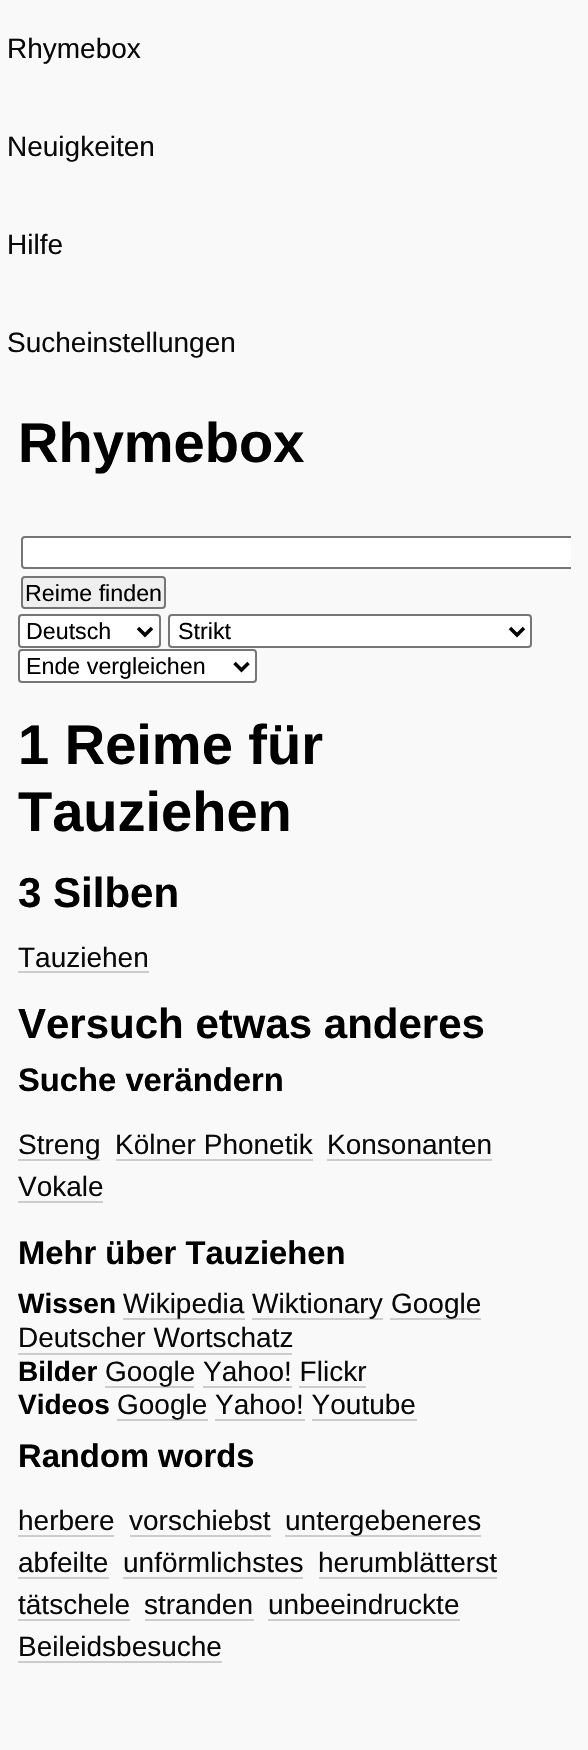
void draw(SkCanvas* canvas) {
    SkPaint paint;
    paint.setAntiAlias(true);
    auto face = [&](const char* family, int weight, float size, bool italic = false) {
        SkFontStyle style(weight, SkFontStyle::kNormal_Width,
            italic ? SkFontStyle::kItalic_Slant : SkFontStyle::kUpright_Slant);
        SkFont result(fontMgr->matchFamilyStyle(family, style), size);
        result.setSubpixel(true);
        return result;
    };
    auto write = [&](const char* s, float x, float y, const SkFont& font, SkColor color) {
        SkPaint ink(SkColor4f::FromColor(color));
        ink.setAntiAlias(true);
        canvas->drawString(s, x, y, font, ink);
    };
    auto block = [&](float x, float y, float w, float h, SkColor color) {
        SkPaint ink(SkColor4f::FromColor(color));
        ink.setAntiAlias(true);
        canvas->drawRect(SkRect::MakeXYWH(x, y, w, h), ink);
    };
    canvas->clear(SkColorSetRGB(249, 249, 249));
    auto kFont1 = face("Liberation Sans", 400, 28);
    write("Rhymebox", 7, 58, kFont1, SkColorSetRGB(9, 9, 9));
    write("Neuigkeiten", 7, 156, kFont1, SkColorSetRGB(9, 9, 9));
    write("Hilfe", 7, 254, kFont1, SkColorSetRGB(9, 9, 9));
    write("Sucheinstellungen", 7, 352, kFont1, SkColorSetRGB(9, 9, 9));
    auto kFont2 = face("Liberation Sans", 700, 56);
    write("Rhymebox", 18, 462, kFont2, SK_ColorBLACK);
    paint.setColor(SK_ColorWHITE);
    canvas->drawPath(SkPathBuilder().moveTo(25, 536).lineTo(571, 536).lineTo(571, 569).lineTo(25, 569).cubicTo(23, 569, 21, 567, 21, 565).lineTo(21, 540).cubicTo(21, 538, 23, 536, 25, 536).close().detach(), paint);
    canvas->save();
    canvas->clipRect(SkRect::MakeXYWH(18, 410, 553, 301));
    paint.setStyle(SkPaint::kStroke_Style);
    paint.setStrokeWidth(2);
    paint.setColor(SkColorSetRGB(118, 118, 118));
    canvas->drawRoundRect(SkRect::MakeXYWH(22, 537, 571, 31), 3, 3, paint);
    canvas->restore();
    paint.setStyle(SkPaint::kFill_Style);
    paint.setColor(SkColorSetRGB(239, 239, 239));
    canvas->drawRoundRect(SkRect::MakeXYWH(22, 577, 143, 31), 3, 3, paint);
    paint.setStyle(SkPaint::kStroke_Style);
    paint.setColor(SkColorSetRGB(118, 118, 118));
    canvas->drawRoundRect(SkRect::MakeXYWH(22, 577, 143, 31), 3, 3, paint);
    auto kFont3 = face("Liberation Sans", 400, 23.25f);
    write("Reime finden", 25, 601, kFont3, SK_ColorBLACK);
    paint.setStyle(SkPaint::kFill_Style);
    paint.setColor(SK_ColorWHITE);
    canvas->drawRoundRect(SkRect::MakeXYWH(19, 615, 141, 32), 3, 3, paint);
    paint.setStyle(SkPaint::kStroke_Style);
    paint.setColor(SkColorSetRGB(118, 118, 118));
    canvas->drawRoundRect(SkRect::MakeXYWH(19, 615, 141, 32), 3, 3, paint);
    paint.setStrokeWidth(3.5f);
    paint.setColor(SK_ColorBLACK);
    canvas->drawPath(SkPathBuilder().moveTo(138, 628).lineTo(145, 635).lineTo(152, 628).detach(), paint);
    write("Deutsch", 26, 639, kFont3, SK_ColorBLACK);
    paint.setStyle(SkPaint::kFill_Style);
    paint.setColor(SK_ColorWHITE);
    canvas->drawRoundRect(SkRect::MakeXYWH(169, 615, 362, 32), 3, 3, paint);
    paint.setStyle(SkPaint::kStroke_Style);
    paint.setStrokeWidth(2);
    paint.setColor(SkColorSetRGB(118, 118, 118));
    canvas->drawRoundRect(SkRect::MakeXYWH(169, 615, 362, 32), 3, 3, paint);
    paint.setStrokeWidth(3.5f);
    paint.setColor(SK_ColorBLACK);
    canvas->drawPath(SkPathBuilder().moveTo(510, 628).lineTo(517, 635).lineTo(524, 628).detach(), paint);
    write("Strikt", 178, 639, kFont3, SK_ColorBLACK);
    paint.setStyle(SkPaint::kFill_Style);
    paint.setColor(SK_ColorWHITE);
    canvas->drawRoundRect(SkRect::MakeXYWH(19, 650, 237, 32), 3, 3, paint);
    paint.setStyle(SkPaint::kStroke_Style);
    paint.setStrokeWidth(2);
    paint.setColor(SkColorSetRGB(118, 118, 118));
    canvas->drawRoundRect(SkRect::MakeXYWH(19, 650, 237, 32), 3, 3, paint);
    paint.setStrokeWidth(3.5f);
    paint.setColor(SK_ColorBLACK);
    canvas->drawPath(SkPathBuilder().moveTo(234.5f, 663).lineTo(241.5f, 670).lineTo(248.5f, 663).detach(), paint);
    write("Ende vergleichen", 26, 674, kFont3, SK_ColorBLACK);
    write("1 Reime für", 18, 764, kFont2, SK_ColorBLACK);
    write("Tauziehen", 18, 831, kFont2, SK_ColorBLACK);
    auto kFont4 = face("Liberation Sans", 700, 42);
    write("3 Silben", 18, 907, kFont4, SK_ColorBLACK);
    write("Tauziehen", 18, 967, kFont1, SkColorSetRGB(9, 9, 9));
    block(18, 971, 131, 2, SkColorSetRGB(204, 204, 204));
    write("Versuch etwas anderes", 18, 1038, kFont4, SK_ColorBLACK);
    auto kFont5 = face("Liberation Sans", 700, 32.75f);
    write("Suche verändern", 18, 1091, kFont5, SK_ColorBLACK);
    block(18, 1159, 82, 2, SkColorSetRGB(204, 204, 204));
    write("Streng", 18, 1154, kFont1, SkColorSetRGB(9, 9, 9));
    write("Kölner Phonetik", 115, 1154, kFont1, SkColorSetRGB(9, 9, 9));
    block(116, 1159, 197, 2, SkColorSetRGB(204, 204, 204));
    write("Konsonanten", 327, 1154, kFont1, SkColorSetRGB(9, 9, 9));
    block(327, 1159, 165, 2, SkColorSetRGB(204, 204, 204));
    write("Vokale", 18, 1196, kFont1, SkColorSetRGB(9, 9, 9));
    block(18, 1201, 85, 2, SkColorSetRGB(204, 204, 204));
    write("Mehr über Tauziehen", 18, 1264, kFont5, SK_ColorBLACK);
    auto kFont6 = face("Liberation Sans", 700, 28);
    write("Wissen", 18, 1313, kFont6, SK_ColorBLACK);
    block(123, 1318, 122, 2, SkColorSetRGB(204, 204, 204));
    write("Wikipedia", 123, 1313, kFont1, SkColorSetRGB(9, 9, 9));
    block(252, 1318, 131, 2, SkColorSetRGB(204, 204, 204));
    write("Wiktionary", 252, 1313, kFont1, SkColorSetRGB(9, 9, 9));
    block(390, 1318, 91, 2, SkColorSetRGB(204, 204, 204));
    write("Google", 391, 1313, kFont1, SkColorSetRGB(9, 9, 9));
    write("Deutscher Wortschatz", 18, 1347, kFont1, SkColorSetRGB(9, 9, 9));
    block(18, 1353, 274, 2, SkColorSetRGB(204, 204, 204));
    write("Bilder", 18, 1381, kFont6, SK_ColorBLACK);
    block(105, 1386, 89, 2, SkColorSetRGB(204, 204, 204));
    write("Google Yahoo! Flickr", 105, 1381, kFont1, SkColorSetRGB(9, 9, 9));
    block(203, 1386, 89, 2, SkColorSetRGB(204, 204, 204));
    block(299, 1386, 67, 2, SkColorSetRGB(204, 204, 204));
    write("Videos", 18, 1414, kFont6, SK_ColorBLACK);
    block(117, 1419, 91, 2, SkColorSetRGB(204, 204, 204));
    write("Google Yahoo! Youtube", 117, 1414, kFont1, SkColorSetRGB(9, 9, 9));
    block(215, 1419, 90, 2, SkColorSetRGB(204, 204, 204));
    block(312, 1419, 105, 2, SkColorSetRGB(204, 204, 204));
    write("Random words", 18, 1467, kFont5, SK_ColorBLACK);
    write("herbere", 18, 1530, kFont1, SkColorSetRGB(9, 9, 9));
    block(18, 1535, 96, 2, SkColorSetRGB(204, 204, 204));
    write("vorschiebst", 129, 1530, kFont1, SkColorSetRGB(9, 9, 9));
    block(130, 1535, 141, 2, SkColorSetRGB(204, 204, 204));
    block(285, 1535, 196, 2, SkColorSetRGB(204, 204, 204));
    write("untergebeneres", 285, 1530, kFont1, SkColorSetRGB(9, 9, 9));
    write("abfeilte", 18, 1572, kFont1, SkColorSetRGB(9, 9, 9));
    block(18, 1577, 91, 2, SkColorSetRGB(204, 204, 204));
    write("unförmlichstes", 123, 1572, kFont1, SkColorSetRGB(9, 9, 9));
    block(123, 1577, 180, 2, SkColorSetRGB(204, 204, 204));
    write("herumblätterst", 318, 1572, kFont1, SkColorSetRGB(9, 9, 9));
    block(319, 1577, 178, 2, SkColorSetRGB(204, 204, 204));
    write("tätschele", 18, 1614, kFont1, SkColorSetRGB(9, 9, 9));
    block(18, 1619, 112, 2, SkColorSetRGB(204, 204, 204));
    write("stranden", 144, 1614, kFont1, SkColorSetRGB(9, 9, 9));
    block(145, 1619, 109, 2, SkColorSetRGB(204, 204, 204));
    write("unbeeindruckte", 268, 1614, kFont1, SkColorSetRGB(9, 9, 9));
    block(268, 1619, 192, 2, SkColorSetRGB(204, 204, 204));
    write("Beileidsbesuche", 18, 1656, kFont1, SkColorSetRGB(9, 9, 9));
    block(18, 1661, 204, 2, SkColorSetRGB(204, 204, 204));
}
